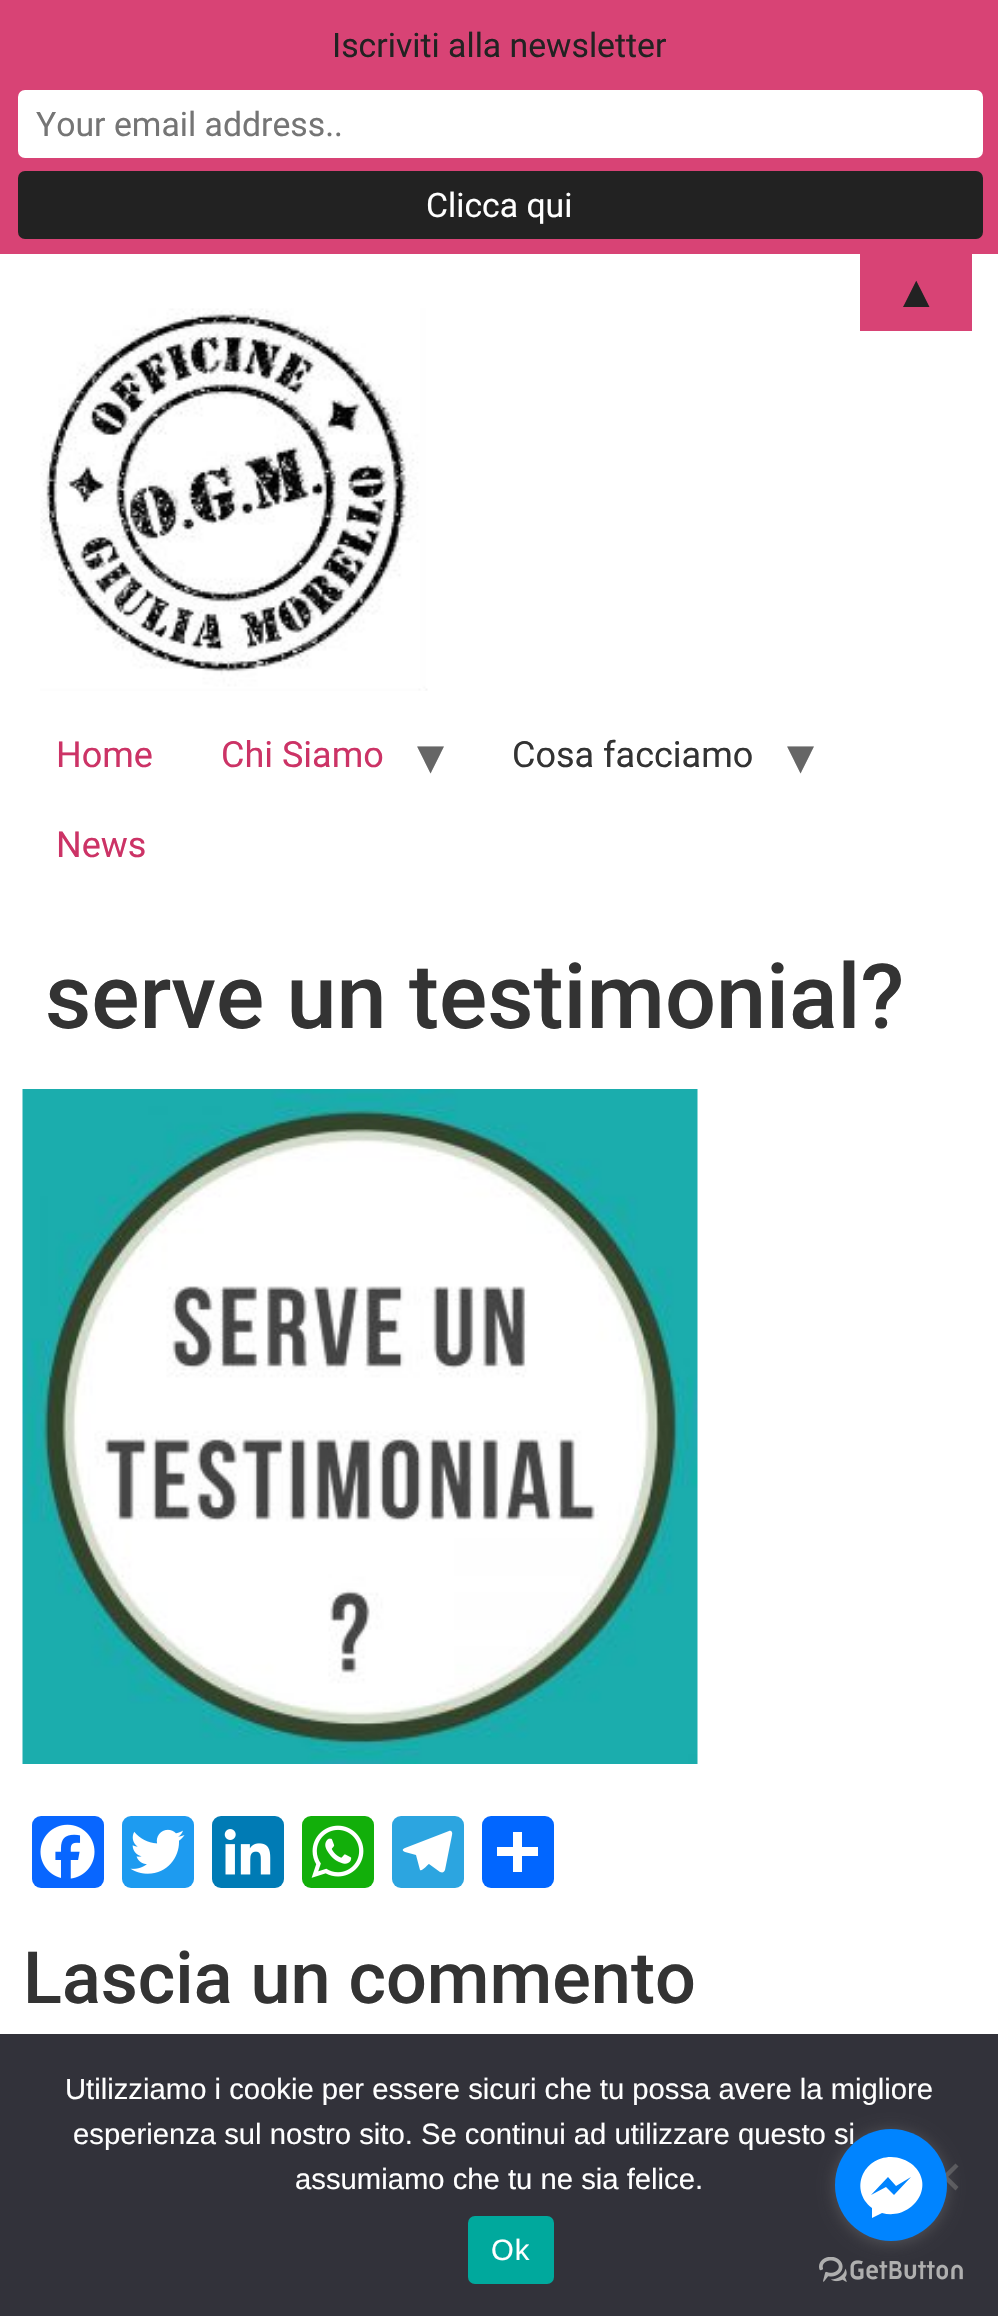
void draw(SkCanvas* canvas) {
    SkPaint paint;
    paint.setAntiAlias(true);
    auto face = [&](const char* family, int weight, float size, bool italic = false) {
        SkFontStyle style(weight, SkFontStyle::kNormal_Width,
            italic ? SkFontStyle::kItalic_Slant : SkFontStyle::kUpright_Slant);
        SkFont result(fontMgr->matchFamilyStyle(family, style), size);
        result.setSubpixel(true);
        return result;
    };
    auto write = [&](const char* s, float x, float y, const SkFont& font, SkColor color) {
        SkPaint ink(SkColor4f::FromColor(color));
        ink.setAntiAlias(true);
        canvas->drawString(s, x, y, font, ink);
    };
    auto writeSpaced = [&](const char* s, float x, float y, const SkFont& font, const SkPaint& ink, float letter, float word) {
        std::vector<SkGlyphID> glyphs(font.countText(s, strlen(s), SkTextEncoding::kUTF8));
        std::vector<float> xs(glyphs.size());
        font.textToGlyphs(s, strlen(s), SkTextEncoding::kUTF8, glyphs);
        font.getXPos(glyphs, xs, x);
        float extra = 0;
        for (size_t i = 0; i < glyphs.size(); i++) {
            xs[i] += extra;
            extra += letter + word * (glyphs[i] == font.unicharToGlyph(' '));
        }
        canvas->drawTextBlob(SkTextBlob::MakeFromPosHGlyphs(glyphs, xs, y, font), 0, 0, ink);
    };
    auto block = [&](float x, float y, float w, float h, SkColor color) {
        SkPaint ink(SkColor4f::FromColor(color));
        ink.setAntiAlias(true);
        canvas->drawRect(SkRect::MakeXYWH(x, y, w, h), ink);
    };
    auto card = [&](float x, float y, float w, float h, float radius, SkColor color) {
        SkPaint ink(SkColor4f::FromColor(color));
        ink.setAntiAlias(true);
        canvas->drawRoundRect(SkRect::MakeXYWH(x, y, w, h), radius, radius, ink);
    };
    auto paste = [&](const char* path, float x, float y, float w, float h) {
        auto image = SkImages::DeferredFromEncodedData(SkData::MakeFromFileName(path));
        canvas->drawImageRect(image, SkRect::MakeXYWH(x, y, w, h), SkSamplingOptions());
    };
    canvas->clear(SK_ColorWHITE);
    block(0, 0, 998, 254, SkColorSetRGB(216, 67, 117));
    auto kFont1 = face("Roboto", 400, 33.75f);
    write("Iscriviti alla newsletter", 332, 57, kFont1, SkColorSetRGB(34, 34, 34));
    paint.setColor(SK_ColorWHITE);
    canvas->drawRoundRect(SkRect::MakeXYWH(19, 91, 963, 66), 6, 6, paint);
    paint.setStyle(SkPaint::kStroke_Style);
    paint.setStrokeWidth(2);
    canvas->drawRoundRect(SkRect::MakeXYWH(19, 91, 963, 66), 6, 6, paint);
    write("Your email address..", 36, 136, kFont1, SkColorSetRGB(117, 117, 117));
    paint.setStyle(SkPaint::kFill_Style);
    paint.setColor(SkColorSetRGB(34, 34, 34));
    canvas->drawRoundRect(SkRect::MakeXYWH(19, 172, 963, 66), 6, 6, paint);
    paint.setStyle(SkPaint::kStroke_Style);
    canvas->drawRoundRect(SkRect::MakeXYWH(19, 172, 963, 66), 6, 6, paint);
    write("Clicca qui", 426, 217, kFont1, SK_ColorWHITE);
    block(860, 254, 112, 77, SkColorSetRGB(216, 67, 117));
    auto kFont2 = face("Liberation Sans", 400, 45);
    write("▲", 894, 307, kFont2, SkColorSetRGB(34, 34, 34));
    paste("pic1.png", 40, 308, 388, 383);
    auto kFont3 = face("Roboto", 400, 36);
    write("Home", 56, 767, kFont3, SkColorSetRGB(204, 51, 102));
    write("Chi Siamo", 221, 767, kFont3, SkColorSetRGB(204, 51, 102));
    auto kFont4 = face("DejaVu Sans", 400, 54);
    write("▾", 417, 774, kFont4, SkColorSetRGB(102, 102, 102));
    write("Cosa facciamo", 512, 767, kFont3, SkColorSetRGB(51, 51, 51));
    write("▾", 787, 774, kFont4, SkColorSetRGB(102, 102, 102));
    write("News", 56, 857, kFont3, SkColorSetRGB(204, 51, 102));
    auto kFont5 = face("Roboto", 500, 90);
    write("serve un testimonial?", 45, 1028, kFont5, SkColorSetRGB(51, 51, 51));
    paste("pic2.png", 22, 1089, 676, 675);
    card(32, 1816, 72, 72, 9, SkColorSetRGB(8, 102, 255));
    paste("pic3.png", 40, 1824, 55, 55);
    card(122, 1816, 72, 72, 9, SkColorSetRGB(29, 155, 240));
    paste("pic4.png", 130, 1829, 55, 45);
    card(212, 1816, 72, 72, 9, SkColorSetRGB(0, 123, 181));
    paste("pic5.png", 224, 1829, 47, 46);
    card(302, 1816, 72, 72, 9, SkColorSetRGB(18, 175, 10));
    paste("pic6.png", 311, 1825, 53, 53);
    card(392, 1816, 72, 72, 9, SkColorSetRGB(44, 165, 224));
    paint.setStyle(SkPaint::kFill_Style);
    paint.setColor(SK_ColorWHITE);
    canvas->drawPath(SkPathBuilder().moveTo(449, 1831).lineTo(405, 1848).cubicTo(402, 1849, 402, 1851, 405, 1852).lineTo(416, 1855).lineTo(420, 1870).cubicTo(422, 1872, 428, 1864, 429, 1864).lineTo(440, 1872).cubicTo(443, 1873, 444, 1872, 445, 1870).lineTo(452, 1835).cubicTo(453, 1832, 451, 1830, 449, 1831).close().detach(), paint);
    card(482, 1816, 72, 72, 9, SkColorSetRGB(1, 102, 255));
    block(513, 1832, 9, 40, SK_ColorWHITE);
    block(497, 1847, 41, 9, SK_ColorWHITE);
    auto kFont6 = face("Roboto", 500, 72);
    write("Lascia un commento", 23, 2003, kFont6, SkColorSetRGB(51, 51, 51));
    block(0, 2034, 998, 282, SkColorSetRGB(50, 50, 58));
    auto kFont7 = face("Liberation Sans", 400, 29.25f);
    write("Utilizziamo i cookie per essere sicuri che tu possa avere la migliore", 65, 2099, kFont7, SK_ColorWHITE);
    write("esperienza sul nostro sito. Se continui ad utilizzare questo si", 73, 2144, kFont7, SK_ColorWHITE);
    write("assumiamo che tu ne sia felice.", 295, 2189, kFont7, SK_ColorWHITE);
    paint.setColor(SkColorSetRGB(89, 89, 93));
    canvas->drawPath(SkPathBuilder().moveTo(955.5f, 2163.5f).lineTo(958.5f, 2166.5f).lineTo(934.5f, 2190.5f).lineTo(931.5f, 2187).close().detach(), paint);
    canvas->drawPath(SkPathBuilder().moveTo(931.5f, 2166.5f).lineTo(934.5f, 2163.5f).lineTo(958.5f, 2187).lineTo(955.5f, 2190.5f).close().detach(), paint);
    card(468, 2216, 86, 68, 7, SkColorSetRGB(0, 169, 157));
    paint.setColor(SK_ColorWHITE);
    writeSpaced("Ok", 491, 2260, kFont7, paint, 1, 0);
    paste("pic7.png", 819, 2257, 144, 25);
    paint.setColor(SkColorSetARGB(102, 136, 136, 136));
    paint.setMaskFilter(SkMaskFilter::MakeBlur(kNormal_SkBlurStyle, 8));
    canvas->drawRoundRect(SkRect::MakeXYWH(835, 2131, 112, 112), 56, 56, paint);
    paint.setMaskFilter(nullptr);
    paint.setColor(SkColorSetRGB(0, 132, 255));
    canvas->drawCircle(891, 2185, 56, paint);
    paint.setColor(SK_ColorWHITE);
    canvas->drawPath(SkPathBuilder().moveTo(891, 2157).cubicTo(863, 2157, 849, 2190, 872, 2208).lineTo(872, 2218).lineTo(882, 2213).cubicTo(911, 2221, 937, 2187, 913, 2165).cubicTo(907, 2160, 899, 2157, 891, 2157).close().moveTo(894, 2195).lineTo(886, 2187).lineTo(871, 2195).lineTo(888, 2177).lineTo(896, 2186).lineTo(911, 2177).close().detach(), paint);
}
